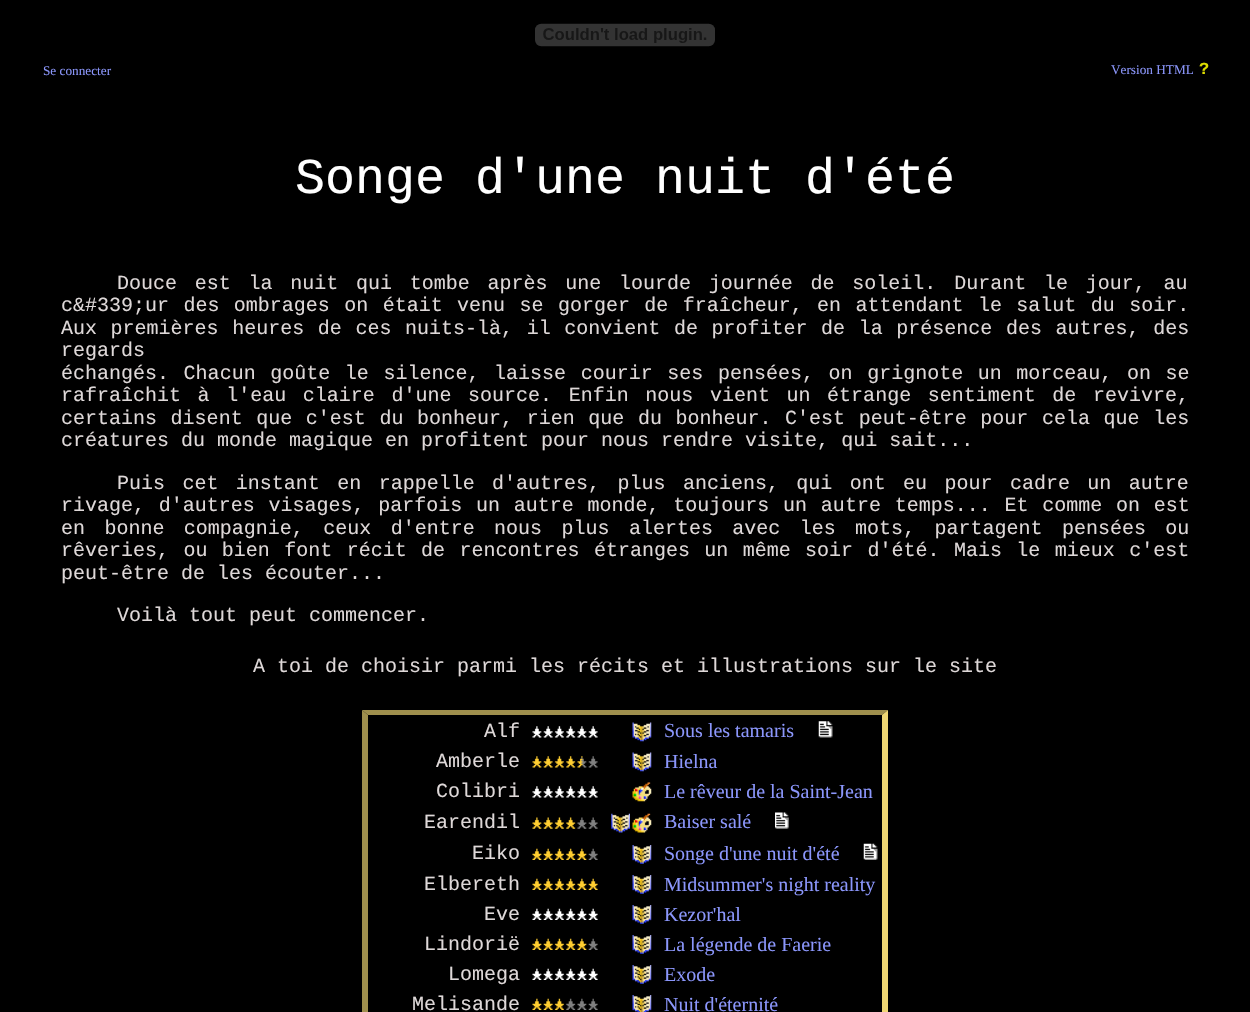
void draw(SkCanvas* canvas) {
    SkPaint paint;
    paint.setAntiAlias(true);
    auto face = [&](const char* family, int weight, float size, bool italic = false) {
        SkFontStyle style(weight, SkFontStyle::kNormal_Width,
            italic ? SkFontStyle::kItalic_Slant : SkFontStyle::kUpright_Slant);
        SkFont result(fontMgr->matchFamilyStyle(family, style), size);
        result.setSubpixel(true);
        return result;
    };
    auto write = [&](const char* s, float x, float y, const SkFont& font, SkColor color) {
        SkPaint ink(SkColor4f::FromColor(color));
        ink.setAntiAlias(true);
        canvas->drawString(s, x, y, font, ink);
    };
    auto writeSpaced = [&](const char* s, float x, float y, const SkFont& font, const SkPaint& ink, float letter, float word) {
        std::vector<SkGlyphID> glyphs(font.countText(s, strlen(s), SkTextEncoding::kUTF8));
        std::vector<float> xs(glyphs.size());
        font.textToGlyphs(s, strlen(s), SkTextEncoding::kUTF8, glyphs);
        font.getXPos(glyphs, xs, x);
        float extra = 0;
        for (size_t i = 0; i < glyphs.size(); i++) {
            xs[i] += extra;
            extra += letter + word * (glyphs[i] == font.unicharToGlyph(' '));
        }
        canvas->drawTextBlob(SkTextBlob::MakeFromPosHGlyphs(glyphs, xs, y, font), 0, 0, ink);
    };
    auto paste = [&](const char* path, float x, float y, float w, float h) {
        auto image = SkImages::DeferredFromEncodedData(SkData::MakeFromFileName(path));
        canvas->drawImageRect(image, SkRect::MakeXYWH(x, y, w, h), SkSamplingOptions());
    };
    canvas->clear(SK_ColorBLACK);
    paste("pic1.png", 535, 23, 180, 24);
    auto kFont1 = face("Liberation Serif", 400, 13.25f);
    write("Se connecter", 43, 75, kFont1, SkColorSetRGB(139, 150, 251));
    write("Version HTML", 1111, 74, kFont1, SkColorSetRGB(139, 150, 251));
    auto kFont2 = face("Liberation Mono", 700, 17);
    write("?", 1199, 74, kFont2, SkColorSetRGB(221, 221, 0));
    auto kFont3 = face("Liberation Mono", 400, 50);
    write("Songe d'une nuit d'été", 295, 193, kFont3, SK_ColorWHITE);
    auto kFont4 = face("Liberation Mono", 400, 20);
    paint.setColor(SkColorSetRGB(222, 216, 216));
    writeSpaced("Douce est la nuit qui tombe après une lourde journée de soleil. Durant le jour, au", 117, 289, kFont4, paint, 0, 5.75f);
    writeSpaced("c&#339;ur des ombrages on était venu se gorger de fraîcheur, en attendant le salut du soir.", 61, 311, kFont4, paint, 0, 2.4f);
    writeSpaced("Aux premières heures de ces nuits-là, il convient de profiter de la présence des autres, des", 61, 334, kFont4, paint, 0, 1.6f);
    write("regards", 61, 356, kFont4, SkColorSetRGB(222, 216, 216));
    writeSpaced("échangés. Chacun goûte le silence, laisse courir ses pensées, on grignote un morceau, on se", 61, 379, kFont4, paint, 0, 2.6f);
    writeSpaced("rafraîchit à l'eau claire d'une source. Enfin nous vient un étrange sentiment de revivre,", 61, 401, kFont4, paint, 0, 4.6f);
    writeSpaced("certains disent que c'est du bonheur, rien que du bonheur. C'est peut-être pour cela que les", 61, 424, kFont4, paint, 0, 1.6f);
    write("créatures du monde magique en profitent pour nous rendre visite, qui sait...", 61, 446, kFont4, SkColorSetRGB(222, 216, 216));
    writeSpaced("Puis cet instant en rappelle d'autres, plus anciens, qui ont eu pour cadre un autre", 117, 489, kFont4, paint, 0, 5.4f);
    writeSpaced("rivage, d'autres visages, parfois un autre monde, toujours un autre temps... Et comme on est", 61, 511, kFont4, paint, 0, 1.75f);
    writeSpaced("en bonne compagnie, ceux d'entre nous plus alertes avec les mots, partagent pensées ou", 61, 534, kFont4, paint, 0, 7.4f);
    writeSpaced("rêveries, ou bien font récit de rencontres étranges un même soir d'été. Mais le mieux c'est", 61, 556, kFont4, paint, 0, 2.4f);
    write("peut-être de les écouter...", 61, 579, kFont4, SkColorSetRGB(222, 216, 216));
    write("Voilà tout peut commencer.", 117, 621, kFont4, SkColorSetRGB(222, 216, 216));
    write("A toi de choisir parmi les récits et illustrations sur le site", 253, 672, kFont4, SkColorSetRGB(222, 216, 216));
    paint.setColor(SkColorSetRGB(159, 143, 77));
    canvas->drawPath(SkPathBuilder().moveTo(362, 710).lineTo(888, 710).lineTo(882, 715).lineTo(368, 715).close().detach(), paint);
    paint.setColor(SkColorSetRGB(239, 214, 115));
    canvas->drawPath(SkPathBuilder().moveTo(888, 710).lineTo(888, 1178).lineTo(882, 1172).lineTo(882, 715).close().detach(), paint);
    paint.setColor(SkColorSetRGB(159, 143, 77));
    canvas->drawPath(SkPathBuilder().moveTo(362, 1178).lineTo(362, 710).lineTo(368, 715).lineTo(368, 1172).close().detach(), paint);
    write("Alf", 484, 737, kFont4, SkColorSetRGB(222, 216, 216));
    paste("pic2.png", 532, 726, 10, 12);
    paste("pic3.png", 543, 726, 10, 12);
    paste("pic4.png", 554, 726, 10, 12);
    paste("pic5.png", 566, 726, 10, 12);
    paste("pic2.png", 577, 726, 10, 12);
    paste("pic3.png", 588, 726, 10, 12);
    paste("pic6.png", 632, 722, 20, 20);
    auto kFont5 = face("Liberation Serif", 400, 20);
    write("Sous les tamaris", 664, 737, kFont5, SkColorSetRGB(139, 150, 251));
    paste("pic7.png", 818, 721, 15, 17);
    write("Amberle", 436, 767, kFont4, SkColorSetRGB(222, 216, 216));
    paste("pic8.png", 532, 756, 10, 12);
    paste("pic9.png", 543, 756, 10, 12);
    paste("pic10.png", 554, 756, 10, 12);
    paste("pic11.png", 566, 756, 10, 12);
    paste("pic12.png", 577, 756, 10, 12);
    paste("pic13.png", 588, 756, 10, 12);
    paste("pic6.png", 632, 752, 20, 20);
    write("Hielna", 664, 768, kFont5, SkColorSetRGB(139, 150, 251));
    write("Colibri", 436, 797, kFont4, SkColorSetRGB(222, 216, 216));
    paste("pic2.png", 532, 786, 10, 12);
    paste("pic3.png", 543, 786, 10, 12);
    paste("pic4.png", 554, 786, 10, 12);
    paste("pic5.png", 566, 786, 10, 12);
    paste("pic2.png", 577, 786, 10, 12);
    paste("pic3.png", 588, 786, 10, 12);
    paste("pic14.png", 632, 782, 20, 20);
    write("Le rêveur de la Saint-Jean", 664, 798, kFont5, SkColorSetRGB(139, 150, 251));
    write("Earendil", 424, 828, kFont4, SkColorSetRGB(222, 216, 216));
    paste("pic15.png", 532, 817, 10, 12);
    paste("pic16.png", 543, 817, 10, 12);
    paste("pic17.png", 554, 817, 10, 12);
    paste("pic18.png", 566, 817, 10, 12);
    paste("pic19.png", 577, 817, 10, 12);
    paste("pic20.png", 588, 817, 10, 12);
    paste("pic21.png", 611, 813, 19, 20);
    paste("pic22.png", 632, 813, 20, 20);
    write("Baiser salé", 664, 828, kFont5, SkColorSetRGB(139, 150, 251));
    paste("pic23.png", 775, 812, 14, 17);
    write("Eiko", 472, 859, kFont4, SkColorSetRGB(222, 216, 216));
    paste("pic24.png", 532, 848, 10, 12);
    paste("pic25.png", 543, 848, 10, 12);
    paste("pic26.png", 554, 848, 10, 12);
    paste("pic27.png", 566, 848, 10, 12);
    paste("pic24.png", 577, 848, 10, 12);
    paste("pic28.png", 588, 848, 10, 12);
    paste("pic29.png", 632, 845, 20, 19);
    write("Songe d'une nuit d'été", 664, 860, kFont5, SkColorSetRGB(139, 150, 251));
    paste("pic30.png", 863, 843, 15, 17);
    write("Elbereth", 424, 890, kFont4, SkColorSetRGB(222, 216, 216));
    paste("pic24.png", 532, 878, 10, 12);
    paste("pic25.png", 543, 878, 10, 12);
    paste("pic26.png", 554, 878, 10, 12);
    paste("pic27.png", 566, 878, 10, 12);
    paste("pic24.png", 577, 878, 10, 12);
    paste("pic25.png", 588, 878, 10, 12);
    paste("pic29.png", 632, 875, 20, 19);
    write("Midsummer's night reality", 664, 891, kFont5, SkColorSetRGB(139, 150, 251));
    write("Eve", 484, 920, kFont4, SkColorSetRGB(222, 216, 216));
    paste("pic31.png", 532, 908, 10, 12);
    paste("pic32.png", 543, 908, 10, 12);
    paste("pic33.png", 554, 908, 10, 12);
    paste("pic34.png", 566, 908, 10, 12);
    paste("pic31.png", 577, 908, 10, 12);
    paste("pic32.png", 588, 908, 10, 12);
    paste("pic29.png", 632, 905, 20, 19);
    write("Kezor'hal", 664, 921, kFont5, SkColorSetRGB(139, 150, 251));
    write("Lindorië", 424, 950, kFont4, SkColorSetRGB(222, 216, 216));
    paste("pic24.png", 532, 938, 10, 12);
    paste("pic25.png", 543, 938, 10, 12);
    paste("pic26.png", 554, 938, 10, 12);
    paste("pic27.png", 566, 938, 10, 12);
    paste("pic24.png", 577, 938, 10, 12);
    paste("pic28.png", 588, 938, 10, 12);
    paste("pic29.png", 632, 935, 20, 19);
    write("La légende de Faerie", 664, 951, kFont5, SkColorSetRGB(139, 150, 251));
    write("Lomega", 448, 980, kFont4, SkColorSetRGB(222, 216, 216));
    paste("pic31.png", 532, 968, 10, 12);
    paste("pic32.png", 543, 968, 10, 12);
    paste("pic33.png", 554, 968, 10, 12);
    paste("pic34.png", 566, 968, 10, 12);
    paste("pic31.png", 577, 968, 10, 12);
    paste("pic32.png", 588, 968, 10, 12);
    paste("pic29.png", 632, 965, 20, 19);
    write("Exode", 664, 981, kFont5, SkColorSetRGB(139, 150, 251));
    write("Melisande", 412, 1010, kFont4, SkColorSetRGB(222, 216, 216));
    paste("pic24.png", 532, 998, 10, 12);
    paste("pic25.png", 543, 998, 10, 12);
    paste("pic26.png", 554, 998, 10, 12);
    paste("pic35.png", 566, 998, 10, 12);
    paste("pic36.png", 577, 998, 10, 12);
    paste("pic28.png", 588, 998, 10, 12);
    paste("pic37.png", 632, 995, 20, 17);
    write("Nuit d'éternité", 664, 1011, kFont5, SkColorSetRGB(139, 150, 251));
}
